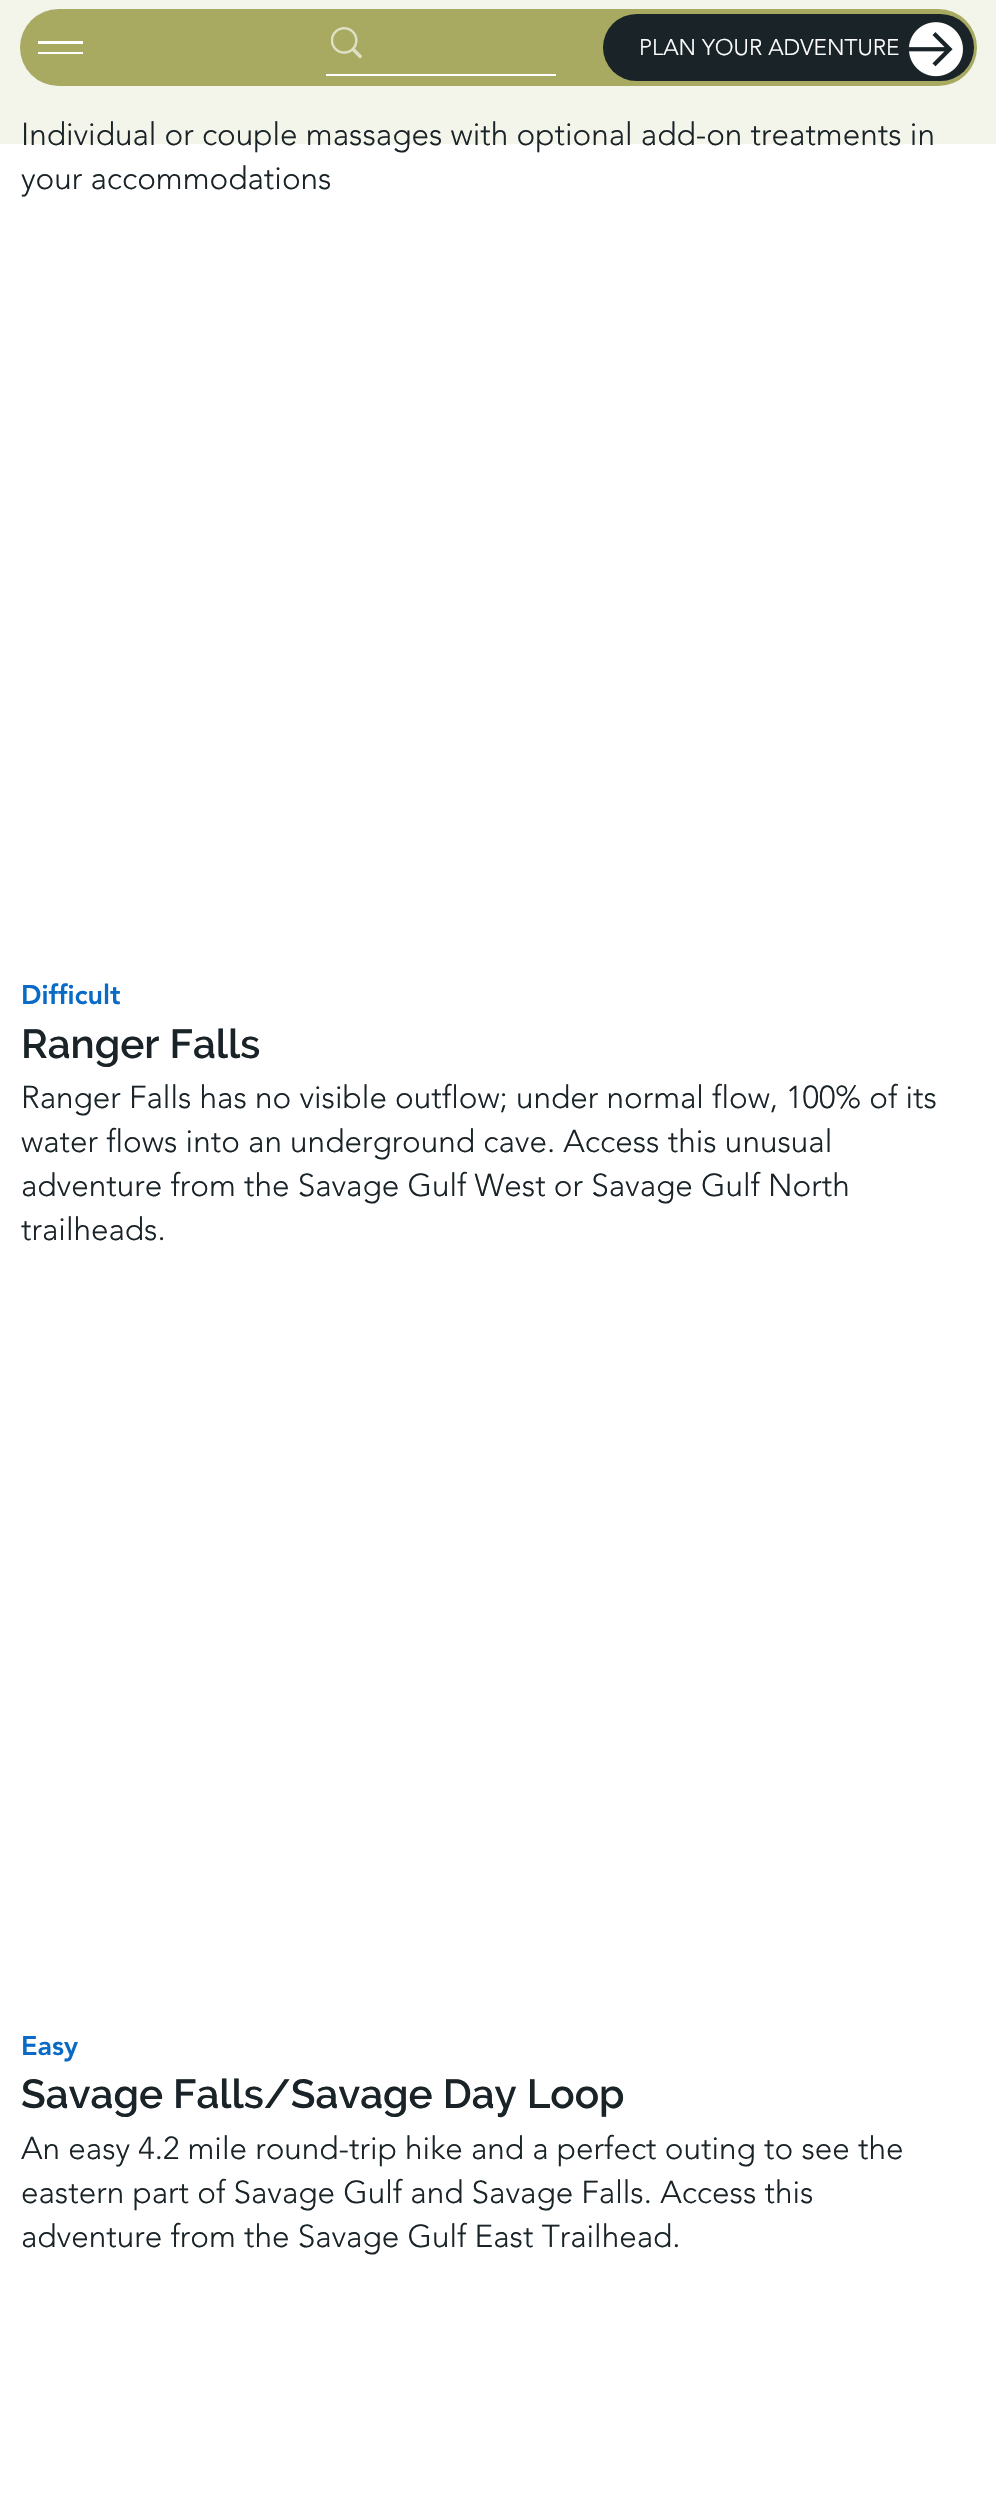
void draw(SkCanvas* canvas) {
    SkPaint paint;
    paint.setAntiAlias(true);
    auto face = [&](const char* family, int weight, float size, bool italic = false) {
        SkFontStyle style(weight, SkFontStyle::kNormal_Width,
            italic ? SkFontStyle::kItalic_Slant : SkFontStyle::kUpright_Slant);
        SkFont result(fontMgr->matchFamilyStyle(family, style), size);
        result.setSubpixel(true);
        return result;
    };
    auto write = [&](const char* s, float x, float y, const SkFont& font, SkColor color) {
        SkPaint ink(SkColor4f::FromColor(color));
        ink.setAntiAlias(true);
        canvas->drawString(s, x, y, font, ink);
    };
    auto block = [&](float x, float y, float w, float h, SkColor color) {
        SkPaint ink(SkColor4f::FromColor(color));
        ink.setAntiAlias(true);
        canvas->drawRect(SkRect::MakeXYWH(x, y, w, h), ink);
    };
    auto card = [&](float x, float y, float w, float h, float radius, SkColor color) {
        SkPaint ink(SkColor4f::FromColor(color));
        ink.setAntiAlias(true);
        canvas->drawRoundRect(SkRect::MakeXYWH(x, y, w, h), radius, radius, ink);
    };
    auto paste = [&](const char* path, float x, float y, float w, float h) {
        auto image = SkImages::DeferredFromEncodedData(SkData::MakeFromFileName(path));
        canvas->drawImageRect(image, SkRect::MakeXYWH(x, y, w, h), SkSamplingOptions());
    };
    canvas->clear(SK_ColorWHITE);
    block(0, 0, 996, 144, SkColorSetARGB(26, 142, 146, 49));
    card(20, 9, 957, 77, 38.5f, SkColorSetARGB(191, 142, 146, 49));
    block(38, 41, 45, 3, SK_ColorWHITE);
    block(38, 52, 45, 2, SK_ColorWHITE);
    block(326, 74, 230, 2, SK_ColorWHITE);
    paste("pic1.png", 331, 27, 31, 32);
    card(603, 14, 371, 67, 33.5f, SkColorSetRGB(25, 35, 40));
    auto kFont1 = face("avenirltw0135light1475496", 300, 22.5f);
    write("PLAN YOUR ADVENTURE", 639, 55, kFont1, SK_ColorWHITE);
    paste("pic2.png", 909, 22, 54, 55);
    auto kFont2 = face("avenirltw0135light1475496", 300, 31.5f);
    write("Individual or couple massages with optional add-on treatments in", 21, 145, kFont2, SkColorSetRGB(25, 35, 40));
    write("your accommodations", 21, 189, kFont2, SkColorSetRGB(25, 35, 40));
    auto kFont3 = face("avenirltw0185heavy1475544", 900, 27);
    write("Difficult", 21, 1004, kFont3, SkColorSetRGB(9, 107, 198));
    auto kFont4 = face("Raleway", 600, 40.5f);
    write("Ranger Falls", 21, 1058, kFont4, SkColorSetRGB(25, 35, 40));
    write("Ranger Falls has no visible outflow; under normal flow, 100% of its", 21, 1108, kFont2, SkColorSetRGB(25, 35, 40));
    write("water flows into an underground cave. Access this unusual", 21, 1152, kFont2, SkColorSetRGB(25, 35, 40));
    write("adventure from the Savage Gulf West or Savage Gulf North", 21, 1196, kFont2, SkColorSetRGB(25, 35, 40));
    write("trailheads.", 21, 1240, kFont2, SkColorSetRGB(25, 35, 40));
    write("Easy", 21, 2055, kFont3, SkColorSetRGB(9, 107, 198));
    write("Savage Falls/Savage Day Loop", 21, 2108, kFont4, SkColorSetRGB(25, 35, 40));
    write("An easy 4.2 mile round-trip hike and a perfect outing to see the", 21, 2159, kFont2, SkColorSetRGB(25, 35, 40));
    write("eastern part of Savage Gulf and Savage Falls. Access this", 21, 2203, kFont2, SkColorSetRGB(25, 35, 40));
    write("adventure from the Savage Gulf East Trailhead.", 21, 2247, kFont2, SkColorSetRGB(25, 35, 40));
}
